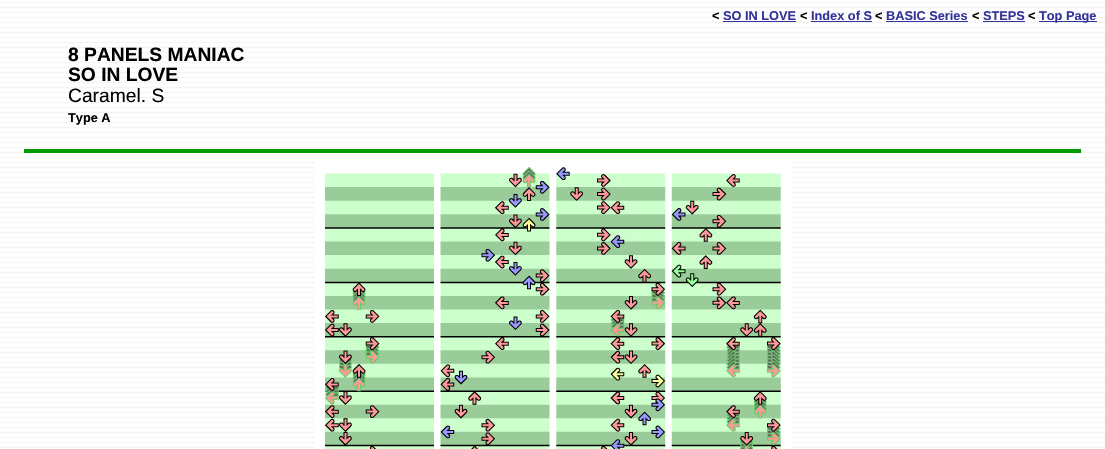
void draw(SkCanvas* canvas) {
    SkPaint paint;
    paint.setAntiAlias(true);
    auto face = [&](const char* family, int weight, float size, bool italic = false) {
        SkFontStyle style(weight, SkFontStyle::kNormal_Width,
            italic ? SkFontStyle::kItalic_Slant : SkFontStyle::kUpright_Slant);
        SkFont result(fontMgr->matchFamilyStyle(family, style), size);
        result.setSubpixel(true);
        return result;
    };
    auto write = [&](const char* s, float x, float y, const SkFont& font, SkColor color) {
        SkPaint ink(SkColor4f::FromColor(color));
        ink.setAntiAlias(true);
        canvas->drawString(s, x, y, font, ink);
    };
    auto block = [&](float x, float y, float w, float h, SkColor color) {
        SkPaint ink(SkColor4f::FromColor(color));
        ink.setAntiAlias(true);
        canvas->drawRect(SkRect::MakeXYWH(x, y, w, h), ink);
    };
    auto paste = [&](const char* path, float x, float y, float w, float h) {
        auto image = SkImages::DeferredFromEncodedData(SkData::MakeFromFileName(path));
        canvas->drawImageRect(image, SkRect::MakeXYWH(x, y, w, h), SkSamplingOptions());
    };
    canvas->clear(SK_ColorWHITE);
    paste("pic1.png", 0, 2, 1105, 446);
    auto kFont1 = face("Liberation Sans", 700, 12.75f);
    write("<", 712, 20, kFont1, SK_ColorBLACK);
    write("SO IN LOVE", 723, 20, kFont1, SkColorSetRGB(51, 51, 153));
    block(723, 21, 73, 1, SkColorSetRGB(51, 51, 153));
    write("<", 800, 20, kFont1, SK_ColorBLACK);
    write("Index of S", 811, 20, kFont1, SkColorSetRGB(51, 51, 153));
    block(811, 21, 61, 1, SkColorSetRGB(51, 51, 153));
    write("<", 875, 20, kFont1, SK_ColorBLACK);
    write("BASIC Series", 886, 20, kFont1, SkColorSetRGB(51, 51, 153));
    block(886, 21, 82, 1, SkColorSetRGB(51, 51, 153));
    write("<", 972, 20, kFont1, SK_ColorBLACK);
    write("STEPS", 983, 20, kFont1, SkColorSetRGB(51, 51, 153));
    block(983, 21, 42, 1, SkColorSetRGB(51, 51, 153));
    write("<", 1028, 20, kFont1, SK_ColorBLACK);
    block(1039, 21, 58, 1, SkColorSetRGB(51, 51, 153));
    write("Top Page", 1039, 20, kFont1, SkColorSetRGB(51, 51, 153));
    block(24, 149, 1057, 4, SkColorSetRGB(0, 153, 0));
    auto kFont2 = face("Liberation Sans", 700, 19.25f);
    write("8 PANELS MANIAC", 68, 61, kFont2, SK_ColorBLACK);
    write("SO IN LOVE", 68, 81, kFont2, SK_ColorBLACK);
    auto kFont3 = face("Liberation Sans", 400, 19.25f);
    write("Caramel. S", 68, 102, kFont3, SK_ColorBLACK);
    write("Type A", 68, 122, kFont1, SK_ColorBLACK);
    paste("pic2.png", 314, 162, 478, 287);
}
